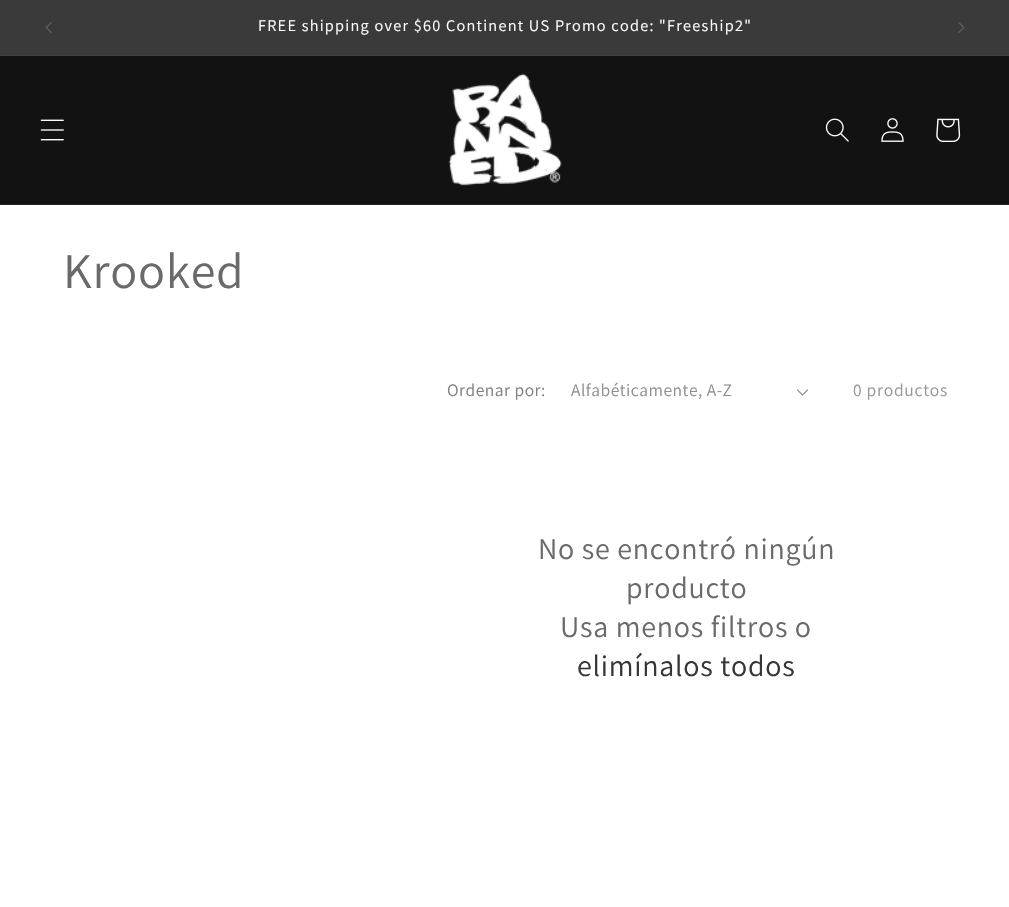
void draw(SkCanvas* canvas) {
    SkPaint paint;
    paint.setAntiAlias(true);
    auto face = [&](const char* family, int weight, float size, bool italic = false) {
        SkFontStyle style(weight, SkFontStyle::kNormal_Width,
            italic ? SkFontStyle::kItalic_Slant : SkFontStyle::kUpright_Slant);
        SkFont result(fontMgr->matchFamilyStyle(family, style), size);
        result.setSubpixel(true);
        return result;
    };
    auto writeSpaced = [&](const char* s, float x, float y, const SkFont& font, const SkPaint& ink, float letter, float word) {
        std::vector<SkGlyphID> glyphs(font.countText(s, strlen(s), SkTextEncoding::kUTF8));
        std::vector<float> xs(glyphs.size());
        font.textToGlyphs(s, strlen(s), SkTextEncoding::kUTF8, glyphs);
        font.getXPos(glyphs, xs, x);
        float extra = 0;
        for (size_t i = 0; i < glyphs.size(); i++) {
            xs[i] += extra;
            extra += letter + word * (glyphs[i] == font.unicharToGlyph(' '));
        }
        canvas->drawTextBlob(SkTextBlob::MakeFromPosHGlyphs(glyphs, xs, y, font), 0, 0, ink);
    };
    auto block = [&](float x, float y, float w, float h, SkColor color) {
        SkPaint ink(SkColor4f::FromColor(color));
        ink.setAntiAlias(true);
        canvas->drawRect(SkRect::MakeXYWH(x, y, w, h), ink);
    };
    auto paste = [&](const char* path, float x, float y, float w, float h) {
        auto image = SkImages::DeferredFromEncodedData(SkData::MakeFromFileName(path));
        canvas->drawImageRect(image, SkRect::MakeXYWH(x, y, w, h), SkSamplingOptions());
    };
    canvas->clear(SK_ColorWHITE);
    block(0, 0, 1009, 55, SkColorSetRGB(58, 58, 58));
    block(0, 55, 1009, 1, SkColorSetRGB(62, 62, 62));
    paste("pic1.png", 45, 22, 7, 11);
    auto kFont1 = face("Assistant", 400, 16.25f);
    paint.setColor(SK_ColorWHITE);
    writeSpaced("FREE shipping over $60 Continent US Promo code: \"Freeship2\"", 258, 31, kFont1, paint, 1.25f, 0);
    paste("pic2.png", 958, 22, 7, 11);
    block(0, 56, 1009, 148, SkColorSetRGB(18, 18, 18));
    block(0, 204, 1009, 1, SkColorSetRGB(37, 37, 37));
    paste("pic3.png", 40, 119, 24, 22);
    paste("pic4.png", 448, 73, 114, 113);
    paste("pic5.png", 825, 118, 24, 24);
    paste("pic6.png", 881, 118, 23, 24);
    paste("pic7.png", 936, 118, 25, 24);
    auto kFont2 = face("Assistant", 400, 50);
    paint.setColor(SkColorSetRGB(106, 106, 106));
    writeSpaced("Krooked", 63, 288, kFont2, paint, 0.75f, 0);
    auto kFont3 = face("Assistant", 400, 17.5f);
    paint.setColor(SkColorSetRGB(128, 128, 128));
    writeSpaced("Ordenar por:", 447, 396, kFont3, paint, 0.5f, 0);
    paint.setColor(SkColorSetRGB(143, 143, 143));
    writeSpaced("Alfabéticamente, A-Z", 571, 396, kFont3, paint, 0.5f, 0);
    paste("pic8.png", 797, 389, 11, 7);
    paint.setColor(SkColorSetRGB(151, 151, 151));
    writeSpaced("0 productos", 853, 396, kFont3, paint, 0.75f, 0);
    auto kFont4 = face("Assistant", 400, 30);
    paint.setColor(SkColorSetRGB(106, 106, 106));
    writeSpaced("No se encontró ningún", 538, 559, kFont4, paint, 0.75f, 0);
    writeSpaced("producto", 626, 598, kFont4, paint, 0.75f, 0);
    writeSpaced("Usa menos filtros o", 560, 637, kFont4, paint, 0.75f, 0);
    paint.setColor(SkColorSetRGB(54, 54, 54));
    writeSpaced("elimínalos todos", 577, 676, kFont4, paint, 0.75f, 0);
}
